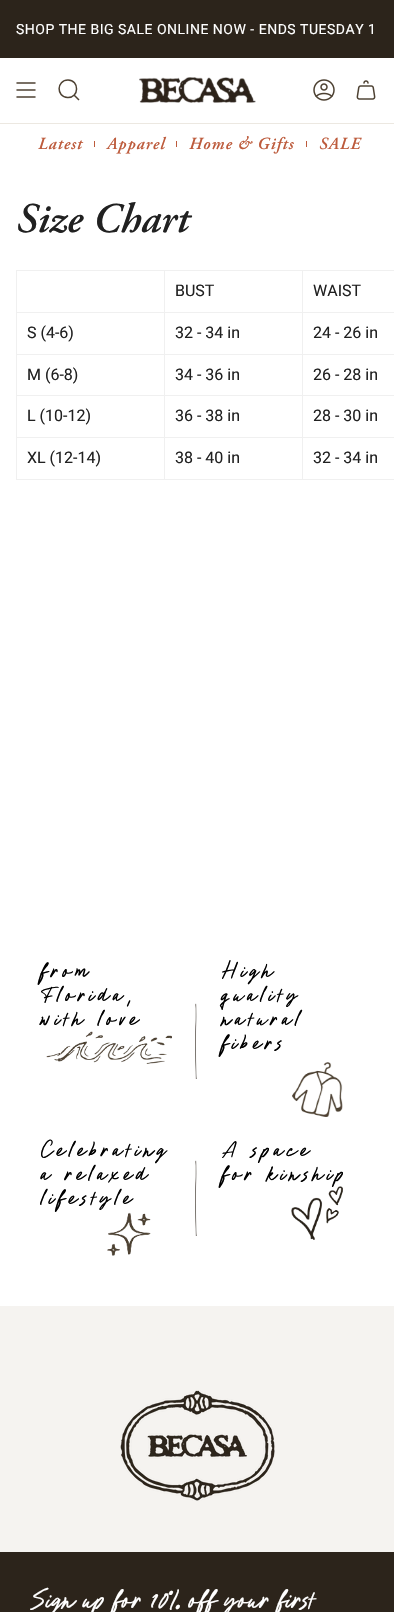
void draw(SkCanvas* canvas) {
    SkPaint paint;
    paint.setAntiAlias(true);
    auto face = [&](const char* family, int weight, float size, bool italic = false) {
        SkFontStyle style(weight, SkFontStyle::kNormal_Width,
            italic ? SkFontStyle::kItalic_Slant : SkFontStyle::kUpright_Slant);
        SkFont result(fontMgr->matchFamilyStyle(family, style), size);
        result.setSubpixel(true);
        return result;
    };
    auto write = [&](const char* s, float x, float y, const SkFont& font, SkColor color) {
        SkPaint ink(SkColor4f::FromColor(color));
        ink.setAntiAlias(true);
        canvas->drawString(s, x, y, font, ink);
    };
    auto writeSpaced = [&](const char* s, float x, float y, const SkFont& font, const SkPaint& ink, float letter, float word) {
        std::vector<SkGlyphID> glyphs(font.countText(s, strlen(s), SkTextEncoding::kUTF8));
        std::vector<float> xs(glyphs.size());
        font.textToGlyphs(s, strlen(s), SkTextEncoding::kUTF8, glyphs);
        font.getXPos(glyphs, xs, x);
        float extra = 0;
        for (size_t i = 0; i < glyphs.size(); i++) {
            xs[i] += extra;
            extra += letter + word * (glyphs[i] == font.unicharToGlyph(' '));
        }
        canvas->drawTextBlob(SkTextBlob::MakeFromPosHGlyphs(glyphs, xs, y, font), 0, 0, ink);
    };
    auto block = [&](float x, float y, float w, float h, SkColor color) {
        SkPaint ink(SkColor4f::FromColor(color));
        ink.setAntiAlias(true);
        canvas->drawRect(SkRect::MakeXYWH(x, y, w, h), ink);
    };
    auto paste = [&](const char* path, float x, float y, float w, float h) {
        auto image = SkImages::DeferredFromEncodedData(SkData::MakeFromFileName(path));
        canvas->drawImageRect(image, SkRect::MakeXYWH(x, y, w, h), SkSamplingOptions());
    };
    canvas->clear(SK_ColorWHITE);
    block(0, 0, 394, 58, SkColorSetRGB(44, 36, 27));
    auto kFont1 = face("Roboto", 400, 14);
    paint.setColor(SK_ColorWHITE);
    writeSpaced("SHOP THE BIG SALE ONLINE NOW - ENDS TUESDAY 1", 16, 34, kFont1, paint, 0.5f, 0);
    paint.setStyle(SkPaint::kStroke_Style);
    paint.setStrokeWidth(1.5f);
    paint.setStrokeCap(SkPaint::kRound_Cap);
    paint.setStrokeJoin(SkPaint::kRound_Join);
    paint.setColor(SkColorSetRGB(77, 65, 50));
    canvas->drawPath(SkPathBuilder().moveTo(17, 83).lineTo(35, 83).moveTo(17, 90).lineTo(35, 90).moveTo(17, 97).lineTo(35, 97).detach(), paint);
    paint.setStrokeCap(SkPaint::kButt_Cap);
    paint.setStrokeJoin(SkPaint::kMiter_Join);
    canvas->drawPath(SkPathBuilder().moveTo(68, 80).cubicTo(79.5f, 80, 79.5f, 98, 67.5f, 97.5f).cubicTo(56, 97, 56.5f, 80, 68, 80).close().moveTo(74, 95).lineTo(79, 100).detach(), paint);
    paste("pic1.png", 139, 77, 117, 26);
    paste("pic2.png", 313, 79, 22, 22);
    paste("pic3.png", 356, 80, 20, 20);
    block(0, 123, 394, 1, SkColorSetRGB(236, 232, 225));
    auto kFont2 = face("Adobe Garamond", 600, 17, true);
    paint.setStyle(SkPaint::kFill_Style);
    paint.setColor(SkColorSetRGB(189, 91, 60));
    writeSpaced("Latest", 38, 149, kFont2, paint, 1, 0);
    block(94, 141, 1, 6, SkColorSetRGB(189, 91, 60));
    writeSpaced("Apparel", 107, 149, kFont2, paint, 1, 0);
    block(176, 141, 1, 6, SkColorSetRGB(189, 91, 60));
    writeSpaced("Home & Gifts", 189, 149, kFont2, paint, 1, 0);
    block(306, 141, 1, 6, SkColorSetRGB(189, 91, 60));
    writeSpaced("SALE", 319, 149, kFont2, paint, 1, 0);
    auto kFont3 = face("Adobe Garamond", 600, 42, true);
    write("Size Chart", 16, 232, kFont3, SkColorSetRGB(33, 33, 33));
    block(16, 270, 378, 1, SkColorSetRGB(240, 240, 240));
    block(16, 479, 378, 1, SkColorSetRGB(240, 240, 240));
    block(16, 270, 1, 210, SkColorSetRGB(240, 240, 240));
    block(302, 437, 1, 43, SkColorSetRGB(240, 240, 240));
    block(302, 437, 92, 1, SkColorSetRGB(240, 240, 240));
    block(302, 395, 1, 43, SkColorSetRGB(240, 240, 240));
    block(302, 395, 92, 1, SkColorSetRGB(240, 240, 240));
    block(302, 354, 1, 42, SkColorSetRGB(240, 240, 240));
    block(302, 354, 92, 1, SkColorSetRGB(240, 240, 240));
    block(302, 312, 1, 43, SkColorSetRGB(240, 240, 240));
    block(302, 312, 92, 1, SkColorSetRGB(240, 240, 240));
    block(302, 270, 1, 43, SkColorSetRGB(240, 240, 240));
    block(164, 437, 1, 43, SkColorSetRGB(240, 240, 240));
    block(164, 437, 139, 1, SkColorSetRGB(240, 240, 240));
    block(164, 395, 1, 43, SkColorSetRGB(240, 240, 240));
    block(164, 395, 139, 1, SkColorSetRGB(240, 240, 240));
    block(164, 354, 1, 42, SkColorSetRGB(240, 240, 240));
    block(164, 354, 139, 1, SkColorSetRGB(240, 240, 240));
    block(164, 312, 1, 43, SkColorSetRGB(240, 240, 240));
    block(164, 312, 139, 1, SkColorSetRGB(240, 240, 240));
    block(164, 270, 1, 43, SkColorSetRGB(240, 240, 240));
    block(16, 312, 149, 1, SkColorSetRGB(240, 240, 240));
    auto kFont4 = face("Roboto", 400, 16);
    write("BUST", 175, 296, kFont4, SkColorSetRGB(33, 33, 33));
    write("WAIST", 313, 296, kFont4, SkColorSetRGB(33, 33, 33));
    block(16, 354, 149, 1, SkColorSetRGB(240, 240, 240));
    write("S (4-6)", 27, 338, kFont4, SkColorSetRGB(33, 33, 33));
    write("32 - 34 in", 175, 338, kFont4, SkColorSetRGB(33, 33, 33));
    write("24 - 26 in", 313, 338, kFont4, SkColorSetRGB(33, 33, 33));
    block(16, 395, 149, 1, SkColorSetRGB(240, 240, 240));
    write("M (6-8)", 27, 380, kFont4, SkColorSetRGB(33, 33, 33));
    write("34 - 36 in", 175, 380, kFont4, SkColorSetRGB(33, 33, 33));
    write("26 - 28 in", 313, 380, kFont4, SkColorSetRGB(33, 33, 33));
    block(16, 437, 149, 1, SkColorSetRGB(240, 240, 240));
    write("L (10-12)", 27, 421, kFont4, SkColorSetRGB(33, 33, 33));
    write("36 - 38 in", 175, 421, kFont4, SkColorSetRGB(33, 33, 33));
    write("28 - 30 in", 313, 421, kFont4, SkColorSetRGB(33, 33, 33));
    write("XL (12-14)", 27, 463, kFont4, SkColorSetRGB(33, 33, 33));
    write("38 - 40 in", 175, 463, kFont4, SkColorSetRGB(33, 33, 33));
    write("32 - 34 in", 313, 463, kFont4, SkColorSetRGB(33, 33, 33));
    auto kFont5 = face("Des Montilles", 400, 24);
    paint.setColor(SK_ColorBLACK);
    writeSpaced("from", 41, 979, kFont5, paint, 4, 0);
    writeSpaced("Florida,", 41, 1003, kFont5, paint, 4, 0);
    writeSpaced("with love", 41, 1027, kFont5, paint, 4, 0);
    paste("pic4.png", 46, 1031, 126, 33);
    paste("pic5.png", 195, 1003, 2, 76);
    writeSpaced("High", 222, 979, kFont5, paint, 4, 0);
    writeSpaced("quality", 222, 1003, kFont5, paint, 4, 0);
    writeSpaced("natural", 222, 1027, kFont5, paint, 4, 0);
    writeSpaced("fibers", 222, 1051, kFont5, paint, 4, 0);
    paste("pic6.png", 292, 1062, 51, 55);
    writeSpaced("Celebrating", 41, 1158, kFont5, paint, 4, 0);
    writeSpaced("a relaxed", 41, 1182, kFont5, paint, 4, 0);
    writeSpaced("lifestyle", 41, 1206, kFont5, paint, 4, 0);
    paste("pic7.png", 107, 1212, 44, 44);
    paste("pic8.png", 195, 1160, 2, 76);
    writeSpaced("A space", 222, 1158, kFont5, paint, 4, 0);
    writeSpaced("for kinship", 222, 1182, kFont5, paint, 4, 0);
    paste("pic9.png", 291, 1186, 52, 54);
    block(0, 1306, 394, 246, SkColorSetRGB(245, 243, 240));
    paste("pic10.png", 120, 1390, 155, 111);
    block(0, 1552, 394, 60, SkColorSetRGB(44, 36, 27));
    auto kFont6 = face("Des Montilles", 400, 30);
    write("Sign up for 10% off your first", 30, 1610, kFont6, SK_ColorWHITE);
}
